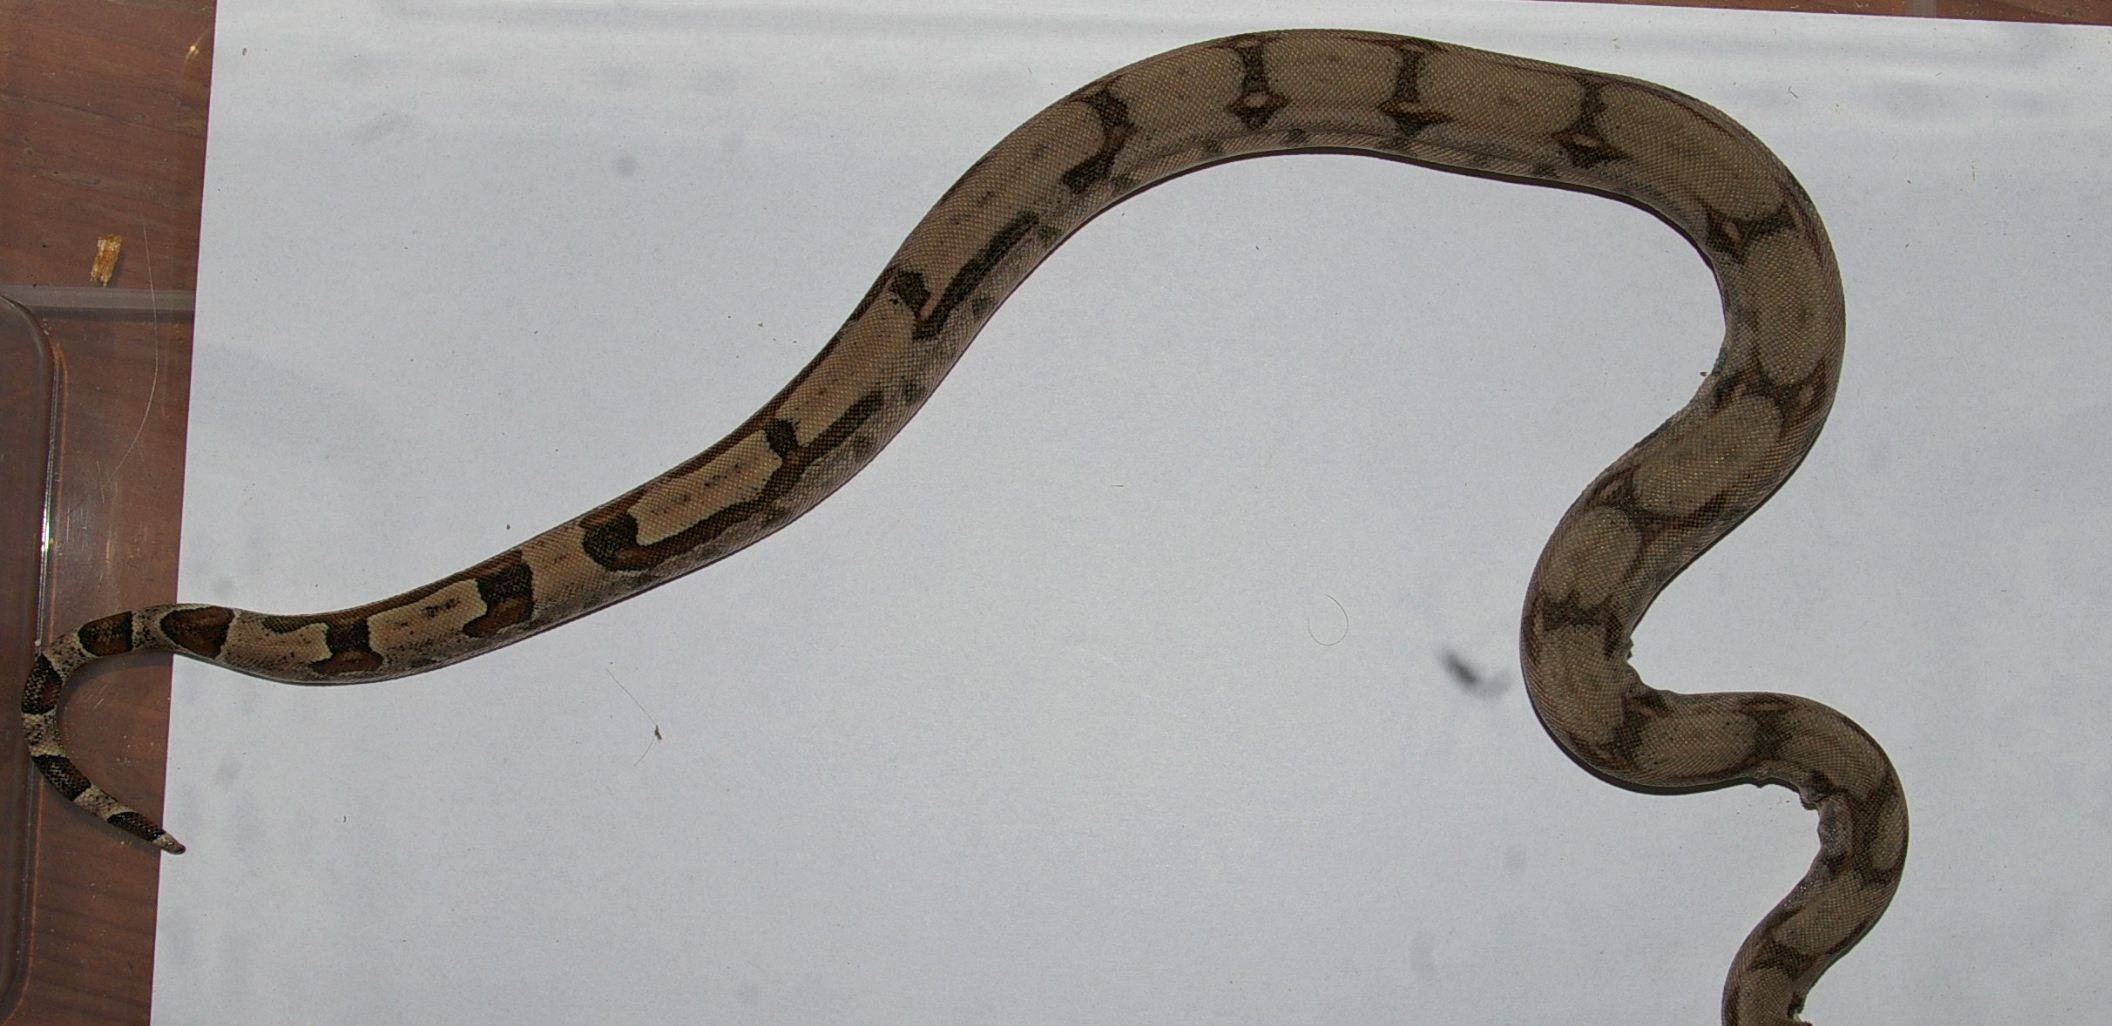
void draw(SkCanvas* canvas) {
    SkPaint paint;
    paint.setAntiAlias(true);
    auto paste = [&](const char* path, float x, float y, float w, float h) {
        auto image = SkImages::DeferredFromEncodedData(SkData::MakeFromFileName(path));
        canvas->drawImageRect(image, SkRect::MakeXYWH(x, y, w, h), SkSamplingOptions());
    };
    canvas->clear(SK_ColorWHITE);
    paste("pic1.png", 0, 0, 2112, 1026);
}
